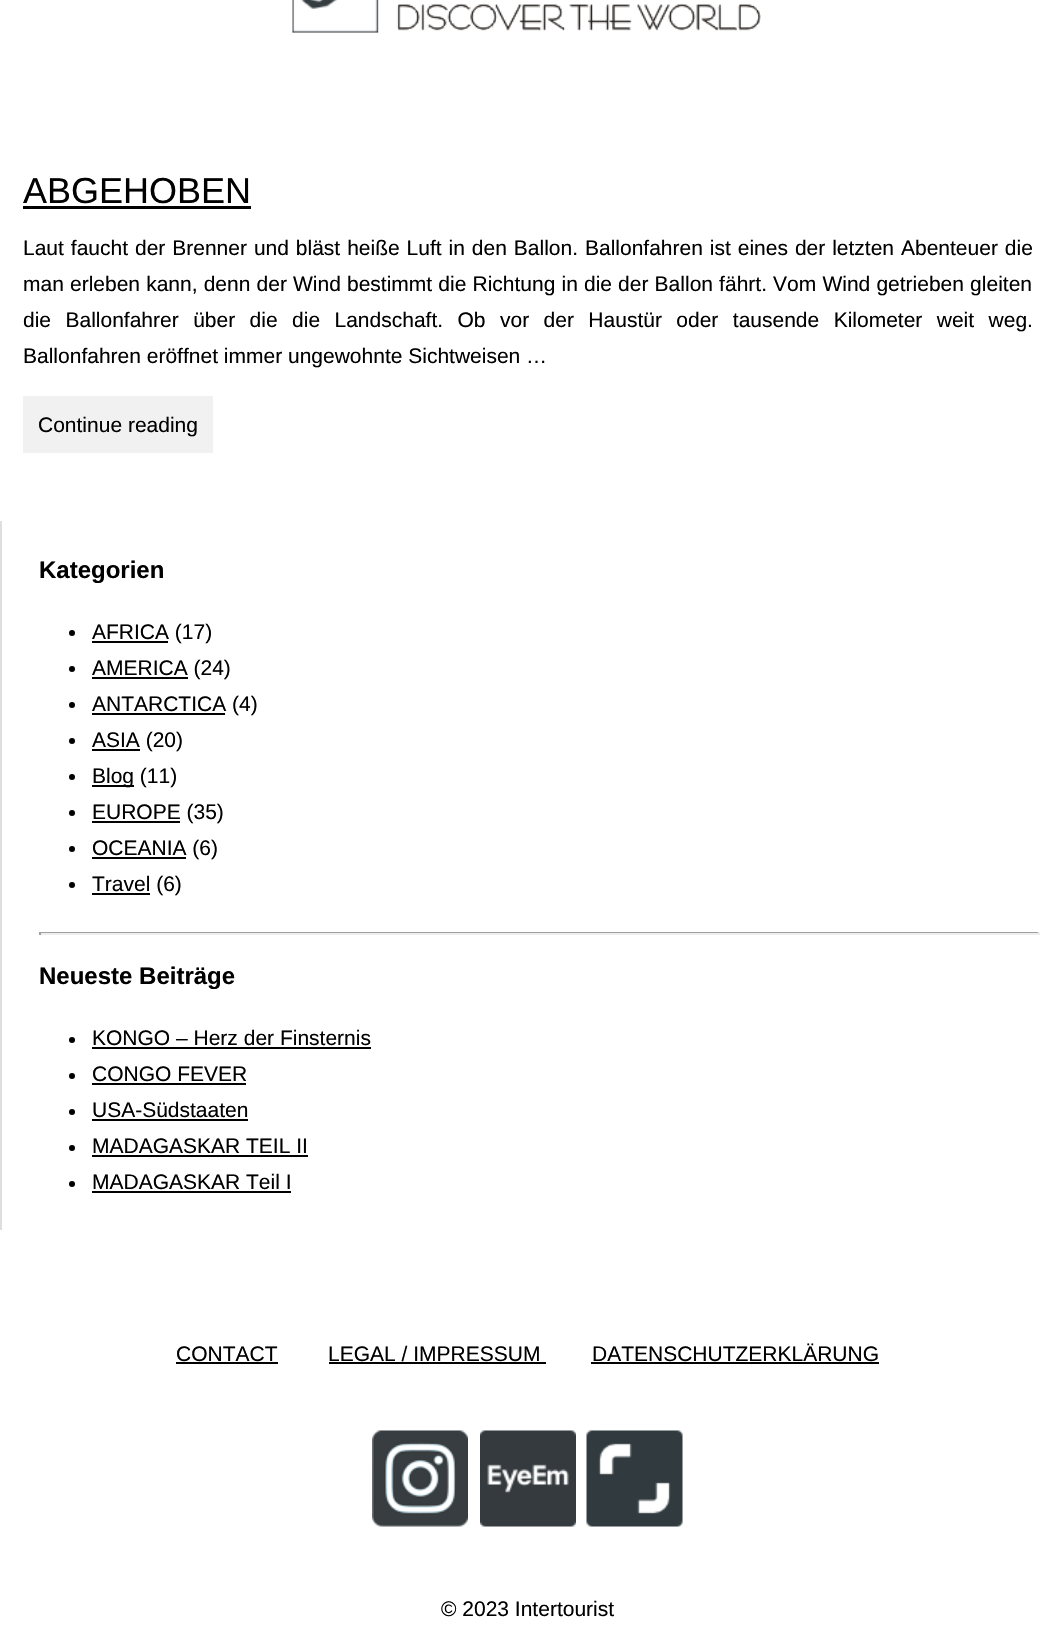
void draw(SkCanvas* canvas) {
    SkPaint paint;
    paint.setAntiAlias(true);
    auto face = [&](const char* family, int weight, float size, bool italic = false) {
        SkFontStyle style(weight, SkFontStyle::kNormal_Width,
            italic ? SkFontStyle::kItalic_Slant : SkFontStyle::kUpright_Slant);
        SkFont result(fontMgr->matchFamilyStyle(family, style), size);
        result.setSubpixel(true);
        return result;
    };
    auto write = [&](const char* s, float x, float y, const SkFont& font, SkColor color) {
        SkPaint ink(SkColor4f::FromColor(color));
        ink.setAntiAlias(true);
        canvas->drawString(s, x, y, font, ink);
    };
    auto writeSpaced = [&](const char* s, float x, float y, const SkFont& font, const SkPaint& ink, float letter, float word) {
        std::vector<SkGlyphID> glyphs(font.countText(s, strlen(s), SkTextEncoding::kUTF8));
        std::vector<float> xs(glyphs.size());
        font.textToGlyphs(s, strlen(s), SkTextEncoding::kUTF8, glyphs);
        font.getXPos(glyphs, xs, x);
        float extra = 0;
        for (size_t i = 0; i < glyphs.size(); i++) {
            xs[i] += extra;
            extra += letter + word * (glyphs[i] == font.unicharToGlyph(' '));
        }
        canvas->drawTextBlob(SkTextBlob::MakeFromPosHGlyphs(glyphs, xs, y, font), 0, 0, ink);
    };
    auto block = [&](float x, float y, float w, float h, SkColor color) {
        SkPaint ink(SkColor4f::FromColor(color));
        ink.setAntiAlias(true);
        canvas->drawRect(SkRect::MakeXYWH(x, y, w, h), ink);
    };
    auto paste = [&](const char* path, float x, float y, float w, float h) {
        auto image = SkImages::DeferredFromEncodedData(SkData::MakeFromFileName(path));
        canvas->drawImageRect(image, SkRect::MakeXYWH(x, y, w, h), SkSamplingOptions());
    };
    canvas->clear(SK_ColorWHITE);
    paste("pic1.png", 292, 0, 469, 33);
    auto kFont1 = face("Liberation Sans", 400, 36);
    write("ABGEHOBEN", 23, 203, kFont1, SK_ColorBLACK);
    block(23, 206, 228, 3, SK_ColorBLACK);
    auto kFont2 = face("Liberation Sans", 400, 21);
    paint.setColor(SK_ColorBLACK);
    writeSpaced("Laut faucht der Brenner und bläst heiße Luft in den Ballon. Ballonfahren ist eines der letzten Abenteuer die", 23, 255, kFont2, paint, 0, 1.1f);
    writeSpaced("man erleben kann, denn der Wind bestimmt die Richtung in die der Ballon fährt. Vom Wind getrieben gleiten", 23, 291, kFont2, paint, 0, 0.3f);
    writeSpaced("die Ballonfahrer über die die Landschaft. Ob vor der Haustür oder tausende Kilometer weit weg.", 23, 327, kFont2, paint, 0, 8.6f);
    write("Ballonfahren eröffnet immer ungewohnte Sichtweisen …", 23, 363, kFont2, SK_ColorBLACK);
    block(23, 396, 190, 57, SkColorSetRGB(241, 241, 241));
    write("Continue reading", 38, 432, kFont2, SK_ColorBLACK);
    block(0, 521, 2, 709, SkColorSetRGB(222, 222, 222));
    auto kFont3 = face("Liberation Sans", 700, 24);
    write("Kategorien", 39, 578, kFont3, SK_ColorBLACK);
    canvas->drawCircle(72, 633, 3, paint);
    block(92, 641, 76, 2, SK_ColorBLACK);
    write("AFRICA (17)", 92, 639, kFont2, SK_ColorBLACK);
    canvas->drawCircle(72, 669, 3, paint);
    block(92, 677, 96, 2, SK_ColorBLACK);
    write("AMERICA (24)", 92, 675, kFont2, SK_ColorBLACK);
    canvas->drawCircle(72, 705, 3, paint);
    block(92, 713, 133, 2, SK_ColorBLACK);
    write("ANTARCTICA (4)", 92, 711, kFont2, SK_ColorBLACK);
    canvas->drawCircle(72, 741, 3, paint);
    block(92, 749, 48, 2, SK_ColorBLACK);
    write("ASIA (20)", 92, 747, kFont2, SK_ColorBLACK);
    canvas->drawCircle(72, 777, 3, paint);
    block(92, 785, 42, 2, SK_ColorBLACK);
    write("Blog (11)", 92, 783, kFont2, SK_ColorBLACK);
    canvas->drawCircle(72, 813, 3, paint);
    block(92, 821, 88, 2, SK_ColorBLACK);
    write("EUROPE (35)", 92, 819, kFont2, SK_ColorBLACK);
    canvas->drawCircle(72, 849, 3, paint);
    block(92, 857, 94, 2, SK_ColorBLACK);
    write("OCEANIA (6)", 92, 855, kFont2, SK_ColorBLACK);
    canvas->drawCircle(72, 885, 3, paint);
    block(92, 893, 58, 2, SK_ColorBLACK);
    write("Travel (6)", 92, 891, kFont2, SK_ColorBLACK);
    block(39, 932, 1001, 1, SkColorSetRGB(159, 159, 159));
    block(1038, 932, 2, 3, SkColorSetRGB(238, 238, 238));
    block(39, 933, 1001, 2, SkColorSetRGB(238, 238, 238));
    block(39, 932, 2, 3, SkColorSetRGB(159, 159, 159));
    write("Neueste Beiträge", 39, 984, kFont3, SK_ColorBLACK);
    canvas->drawCircle(72, 1040, 3, paint);
    write("KONGO – Herz der Finsternis", 92, 1045, kFont2, SK_ColorBLACK);
    block(92, 1047, 279, 2, SK_ColorBLACK);
    canvas->drawCircle(72, 1076, 3, paint);
    write("CONGO FEVER", 92, 1081, kFont2, SK_ColorBLACK);
    block(92, 1083, 154, 2, SK_ColorBLACK);
    canvas->drawCircle(72, 1112, 3, paint);
    write("USA-Südstaaten", 92, 1117, kFont2, SK_ColorBLACK);
    block(92, 1119, 156, 2, SK_ColorBLACK);
    canvas->drawCircle(72, 1148, 3, paint);
    write("MADAGASKAR TEIL II", 92, 1153, kFont2, SK_ColorBLACK);
    block(92, 1155, 216, 2, SK_ColorBLACK);
    canvas->drawCircle(72, 1184, 3, paint);
    write("MADAGASKAR Teil I", 92, 1189, kFont2, SK_ColorBLACK);
    block(92, 1191, 199, 2, SK_ColorBLACK);
    write("CONTACT", 176, 1361, kFont2, SK_ColorBLACK);
    block(176, 1362, 102, 2, SK_ColorBLACK);
    write("LEGAL / IMPRESSUM", 328, 1361, kFont2, SK_ColorBLACK);
    block(329, 1362, 217, 2, SK_ColorBLACK);
    write("DATENSCHUTZERKLÄRUNG", 592, 1361, kFont2, SK_ColorBLACK);
    block(591, 1362, 288, 2, SK_ColorBLACK);
    paste("pic2.png", 372, 1430, 96, 97);
    paste("pic3.png", 480, 1430, 96, 97);
    paste("pic4.png", 586, 1430, 97, 97);
    write("© 2023 Intertourist", 441, 1616, kFont2, SK_ColorBLACK);
}
